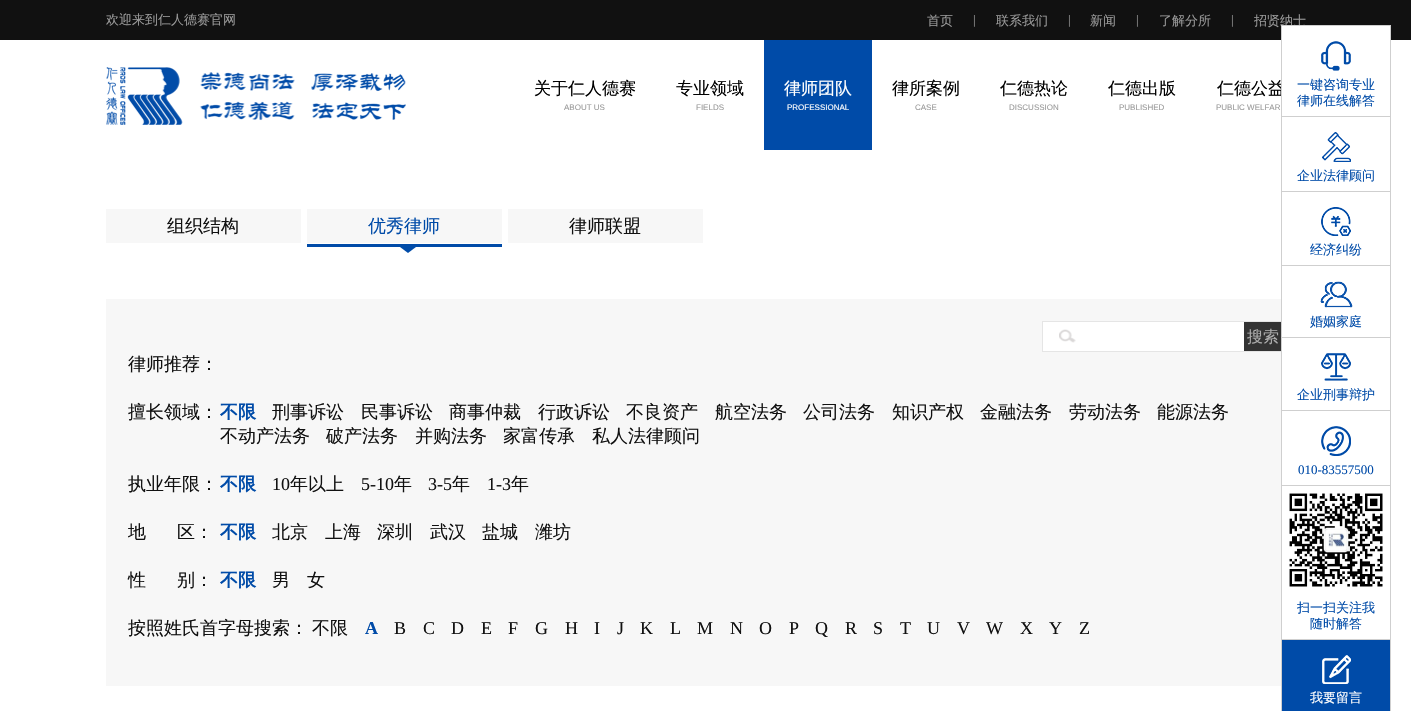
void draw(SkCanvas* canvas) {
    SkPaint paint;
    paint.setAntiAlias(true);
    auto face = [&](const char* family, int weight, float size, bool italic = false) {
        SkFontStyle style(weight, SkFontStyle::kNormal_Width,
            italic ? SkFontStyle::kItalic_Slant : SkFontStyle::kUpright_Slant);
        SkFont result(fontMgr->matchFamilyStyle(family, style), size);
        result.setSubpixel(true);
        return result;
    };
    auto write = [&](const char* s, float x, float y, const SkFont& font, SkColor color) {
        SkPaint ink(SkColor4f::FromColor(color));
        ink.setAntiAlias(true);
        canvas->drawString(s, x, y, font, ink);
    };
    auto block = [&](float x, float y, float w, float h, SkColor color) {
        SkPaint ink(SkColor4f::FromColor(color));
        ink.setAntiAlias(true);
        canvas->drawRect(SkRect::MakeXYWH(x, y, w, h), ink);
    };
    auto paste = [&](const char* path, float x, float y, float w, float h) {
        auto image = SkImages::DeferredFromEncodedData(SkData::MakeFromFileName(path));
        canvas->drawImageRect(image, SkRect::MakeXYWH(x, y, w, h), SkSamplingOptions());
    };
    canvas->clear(SK_ColorWHITE);
    block(0, 0, 1411, 40, SkColorSetRGB(17, 17, 17));
    auto kFont1 = face("WenQuanYi Zen Hei", 500, 13);
    write("欢迎来到仁人德赛官网", 106, 24, kFont1, SkColorSetRGB(153, 153, 153));
    write("首页", 927, 25, kFont1, SkColorSetRGB(153, 153, 153));
    auto kFont2 = face("Liberation Serif", 400, 13);
    write("|", 973, 24, kFont2, SkColorSetRGB(153, 153, 153));
    write("联系我们", 996, 25, kFont1, SkColorSetRGB(153, 153, 153));
    write("|", 1068, 24, kFont2, SkColorSetRGB(153, 153, 153));
    write("新闻", 1090, 25, kFont1, SkColorSetRGB(153, 153, 153));
    write("|", 1136, 24, kFont2, SkColorSetRGB(153, 153, 153));
    write("了解分所", 1159, 25, kFont1, SkColorSetRGB(153, 153, 153));
    write("|", 1231, 24, kFont2, SkColorSetRGB(153, 153, 153));
    write("招贤纳士", 1254, 25, kFont1, SkColorSetRGB(153, 153, 153));
    paste("pic1.png", 106, 67, 300, 58);
    auto kFont3 = face("WenQuanYi Zen Hei", 500, 17);
    write("关于仁人德赛", 534, 94, kFont3, SK_ColorBLACK);
    auto kFont4 = face("Liberation Sans", 400, 8);
    write("ABOUT US", 564, 110, kFont4, SkColorSetRGB(153, 153, 153));
    write("专业领域", 676, 94, kFont3, SK_ColorBLACK);
    write("FIELDS", 696, 110, kFont4, SkColorSetRGB(153, 153, 153));
    block(764, 40, 108, 110, SkColorSetRGB(0, 75, 168));
    write("律师团队", 784, 94, kFont3, SK_ColorWHITE);
    write("PROFESSIONAL", 787, 110, kFont4, SK_ColorWHITE);
    write("律所案例", 892, 94, kFont3, SK_ColorBLACK);
    write("CASE", 915, 110, kFont4, SkColorSetRGB(153, 153, 153));
    write("仁德热论", 1000, 94, kFont3, SK_ColorBLACK);
    write("DISCUSSION", 1009, 110, kFont4, SkColorSetRGB(153, 153, 153));
    write("仁德出版", 1108, 94, kFont3, SK_ColorBLACK);
    write("PUBLISHED", 1119, 110, kFont4, SkColorSetRGB(153, 153, 153));
    write("仁德公益", 1217, 94, kFont3, SK_ColorBLACK);
    write("PUBLIC WELFAR", 1216, 110, kFont4, SkColorSetRGB(153, 153, 153));
    block(106, 209, 195, 34, SkColorSetRGB(247, 247, 247));
    auto kFont5 = face("WenQuanYi Zen Hei", 500, 18);
    write("组织结构", 167, 232, kFont5, SkColorSetRGB(17, 17, 17));
    block(307, 209, 195, 34, SkColorSetRGB(247, 247, 247));
    write("优秀律师", 368, 232, kFont5, SkColorSetRGB(0, 75, 168));
    block(307, 244, 195, 3, SkColorSetRGB(0, 75, 168));
    paint.setColor(SkColorSetRGB(0, 75, 168));
    canvas->drawPath(SkPathBuilder().moveTo(400, 247).lineTo(416, 247).lineTo(408, 253).close().detach(), paint);
    block(508, 209, 195, 34, SkColorSetRGB(247, 247, 247));
    write("律师联盟", 569, 232, kFont5, SkColorSetRGB(17, 17, 17));
    block(106, 299, 1175, 387, SkColorSetRGB(247, 247, 247));
    block(1043, 322, 201, 29, SK_ColorWHITE);
    paint.setStyle(SkPaint::kStroke_Style);
    paint.setStrokeWidth(1);
    paint.setColor(SkColorSetRGB(229, 229, 229));
    canvas->drawRect(SkRect::MakeXYWH(1042.5f, 321.5f, 241, 30), paint);
    paste("pic2.png", 1059, 329, 17, 14);
    block(1244, 322, 37, 29, SkColorSetRGB(51, 51, 51));
    auto kFont6 = face("WenQuanYi Zen Hei", 500, 16);
    write("搜索", 1247, 342, kFont6, SkColorSetRGB(173, 173, 173));
    write("律师推荐：", 128, 370, kFont5, SkColorSetRGB(17, 17, 17));
    write("擅长领域：", 128, 418, kFont5, SkColorSetRGB(17, 17, 17));
    auto kFont7 = face("WenQuanYi Zen Hei", 700, 18);
    write("不限", 220, 418, kFont7, SkColorSetRGB(0, 75, 168));
    write("刑事诉讼", 272, 418, kFont5, SkColorSetRGB(17, 17, 17));
    write("民事诉讼", 361, 418, kFont5, SkColorSetRGB(17, 17, 17));
    write("商事仲裁", 449, 418, kFont5, SkColorSetRGB(17, 17, 17));
    write("行政诉讼", 538, 418, kFont5, SkColorSetRGB(17, 17, 17));
    write("不良资产", 626, 418, kFont5, SkColorSetRGB(17, 17, 17));
    write("航空法务", 715, 418, kFont5, SkColorSetRGB(17, 17, 17));
    write("公司法务", 803, 418, kFont5, SkColorSetRGB(17, 17, 17));
    write("知识产权", 892, 418, kFont5, SkColorSetRGB(17, 17, 17));
    write("金融法务", 980, 418, kFont5, SkColorSetRGB(17, 17, 17));
    write("劳动法务", 1069, 418, kFont5, SkColorSetRGB(17, 17, 17));
    write("能源法务", 1157, 418, kFont5, SkColorSetRGB(17, 17, 17));
    write("不动产法务", 220, 442, kFont5, SkColorSetRGB(17, 17, 17));
    write("破产法务", 326, 442, kFont5, SkColorSetRGB(17, 17, 17));
    write("并购法务", 415, 442, kFont5, SkColorSetRGB(17, 17, 17));
    write("家富传承", 503, 442, kFont5, SkColorSetRGB(17, 17, 17));
    write("私人法律顾问", 592, 442, kFont5, SkColorSetRGB(17, 17, 17));
    write("执业年限：", 128, 490, kFont5, SkColorSetRGB(17, 17, 17));
    write("不限", 220, 490, kFont7, SkColorSetRGB(0, 75, 168));
    auto kFont8 = face("Liberation Serif", 400, 18);
    write("10", 272, 490, kFont8, SkColorSetRGB(17, 17, 17));
    write("年以上", 290, 490, kFont5, SkColorSetRGB(17, 17, 17));
    write("5-10", 361, 490, kFont8, SkColorSetRGB(17, 17, 17));
    write("年", 394, 490, kFont5, SkColorSetRGB(17, 17, 17));
    write("3-5", 428, 490, kFont8, SkColorSetRGB(17, 17, 17));
    write("年", 452, 490, kFont5, SkColorSetRGB(17, 17, 17));
    write("1-3", 487, 490, kFont8, SkColorSetRGB(17, 17, 17));
    write("年", 511, 490, kFont5, SkColorSetRGB(17, 17, 17));
    write("地", 128, 538, kFont5, SkColorSetRGB(17, 17, 17));
    write("区：", 177, 538, kFont5, SkColorSetRGB(17, 17, 17));
    write("不限", 220, 538, kFont7, SkColorSetRGB(0, 75, 168));
    write("北京", 272, 538, kFont5, SkColorSetRGB(17, 17, 17));
    write("上海", 325, 538, kFont5, SkColorSetRGB(17, 17, 17));
    write("深圳", 377, 538, kFont5, SkColorSetRGB(17, 17, 17));
    write("武汉", 430, 538, kFont5, SkColorSetRGB(17, 17, 17));
    write("盐城", 482, 538, kFont5, SkColorSetRGB(17, 17, 17));
    write("潍坊", 535, 538, kFont5, SkColorSetRGB(17, 17, 17));
    write("性", 128, 586, kFont5, SkColorSetRGB(17, 17, 17));
    write("别：", 177, 586, kFont5, SkColorSetRGB(17, 17, 17));
    write("不限", 220, 586, kFont7, SkColorSetRGB(0, 75, 168));
    write("男", 272, 586, kFont5, SkColorSetRGB(17, 17, 17));
    write("女", 307, 586, kFont5, SkColorSetRGB(17, 17, 17));
    write("按照姓氏首字母搜索：", 128, 634, kFont5, SkColorSetRGB(17, 17, 17));
    write("不限", 312, 634, kFont5, SkColorSetRGB(17, 17, 17));
    auto kFont9 = face("Liberation Serif", 700, 18);
    write("A", 365, 634, kFont9, SkColorSetRGB(0, 75, 168));
    write("B", 394, 634, kFont8, SkColorSetRGB(17, 17, 17));
    write("C", 423, 634, kFont8, SkColorSetRGB(17, 17, 17));
    write("D", 451, 634, kFont8, SkColorSetRGB(17, 17, 17));
    write("E", 481, 634, kFont8, SkColorSetRGB(17, 17, 17));
    write("F", 508, 634, kFont8, SkColorSetRGB(17, 17, 17));
    write("G", 535, 634, kFont8, SkColorSetRGB(17, 17, 17));
    write("H", 565, 634, kFont8, SkColorSetRGB(17, 17, 17));
    write("I", 594, 634, kFont8, SkColorSetRGB(17, 17, 17));
    write("J", 617, 634, kFont8, SkColorSetRGB(17, 17, 17));
    write("K", 640, 634, kFont8, SkColorSetRGB(17, 17, 17));
    write("L", 670, 634, kFont8, SkColorSetRGB(17, 17, 17));
    write("M", 697, 634, kFont8, SkColorSetRGB(17, 17, 17));
    write("N", 730, 634, kFont8, SkColorSetRGB(17, 17, 17));
    write("O", 759, 634, kFont8, SkColorSetRGB(17, 17, 17));
    write("P", 789, 634, kFont8, SkColorSetRGB(17, 17, 17));
    write("Q", 815, 634, kFont8, SkColorSetRGB(17, 17, 17));
    write("R", 845, 634, kFont8, SkColorSetRGB(17, 17, 17));
    write("S", 873, 634, kFont8, SkColorSetRGB(17, 17, 17));
    write("T", 900, 634, kFont8, SkColorSetRGB(17, 17, 17));
    write("U", 927, 634, kFont8, SkColorSetRGB(17, 17, 17));
    write("V", 957, 634, kFont8, SkColorSetRGB(17, 17, 17));
    write("W", 986, 634, kFont8, SkColorSetRGB(17, 17, 17));
    write("X", 1020, 634, kFont8, SkColorSetRGB(17, 17, 17));
    write("Y", 1049, 634, kFont8, SkColorSetRGB(17, 17, 17));
    write("Z", 1079, 634, kFont8, SkColorSetRGB(17, 17, 17));
    block(1281, 25, 110, 686, SkColorSetRGB(207, 207, 207));
    block(1282, 26, 108, 90, SK_ColorWHITE);
    paste("pic3.png", 1321, 41, 30, 30);
    write("一键咨询专业", 1297, 89, kFont1, SkColorSetRGB(0, 75, 168));
    write("律师在线解答", 1297, 105, kFont1, SkColorSetRGB(0, 75, 168));
    block(1282, 117, 108, 74, SK_ColorWHITE);
    paste("pic4.png", 1322, 132, 29, 30);
    write("企业法律顾问", 1297, 180, kFont1, SkColorSetRGB(0, 75, 168));
    block(1282, 192, 108, 73, SK_ColorWHITE);
    paste("pic5.png", 1321, 207, 30, 29);
    write("经济纠纷", 1310, 254, kFont1, SkColorSetRGB(0, 75, 168));
    block(1282, 266, 108, 71, SK_ColorWHITE);
    paste("pic6.png", 1320, 281, 33, 27);
    write("婚姻家庭", 1310, 326, kFont1, SkColorSetRGB(0, 75, 168));
    block(1282, 338, 108, 72, SK_ColorWHITE);
    paste("pic7.png", 1321, 353, 30, 28);
    write("企业刑事辩护", 1297, 399, kFont1, SkColorSetRGB(0, 75, 168));
    block(1282, 411, 108, 74, SK_ColorWHITE);
    paste("pic8.png", 1321, 426, 30, 30);
    write("010-83557500", 1298, 474, kFont2, SkColorSetRGB(0, 75, 168));
    block(1282, 486, 108, 153, SK_ColorWHITE);
    paste("pic9.png", 1289, 493, 94, 94);
    write("扫一扫关注我", 1297, 612, kFont1, SkColorSetRGB(0, 75, 168));
    write("随时解答", 1310, 628, kFont1, SkColorSetRGB(0, 75, 168));
    block(1282, 640, 108, 71, SkColorSetRGB(0, 75, 168));
    paste("pic10.png", 1322, 655, 29, 29);
    write("我要留言", 1310, 702, kFont1, SK_ColorWHITE);
}
